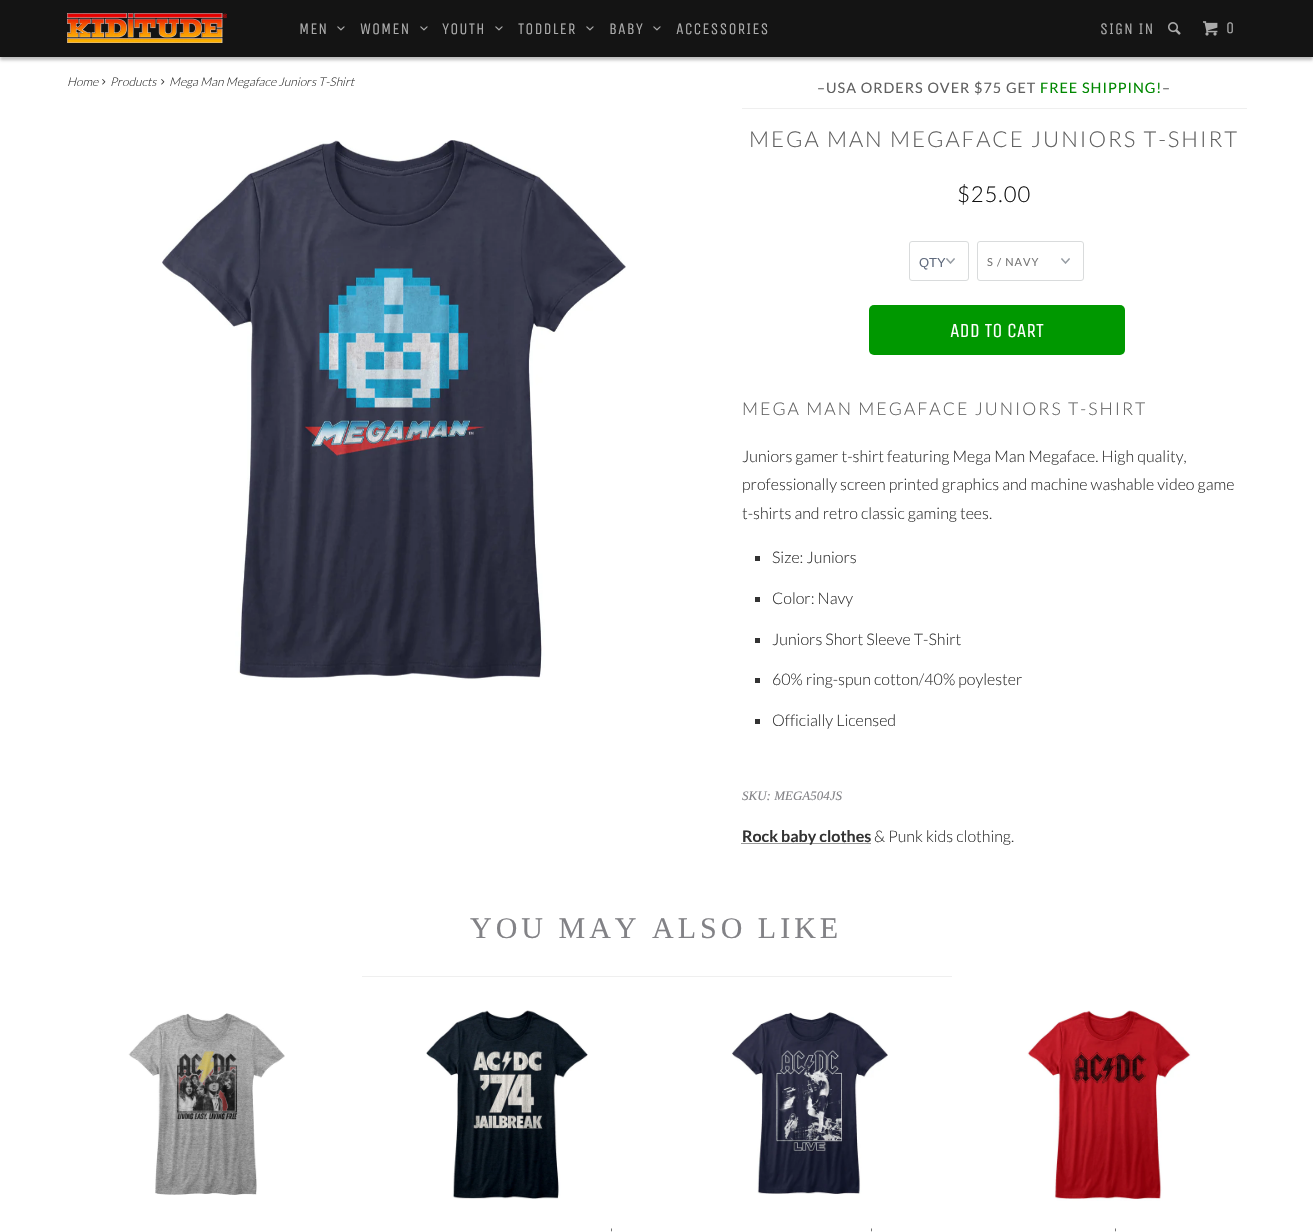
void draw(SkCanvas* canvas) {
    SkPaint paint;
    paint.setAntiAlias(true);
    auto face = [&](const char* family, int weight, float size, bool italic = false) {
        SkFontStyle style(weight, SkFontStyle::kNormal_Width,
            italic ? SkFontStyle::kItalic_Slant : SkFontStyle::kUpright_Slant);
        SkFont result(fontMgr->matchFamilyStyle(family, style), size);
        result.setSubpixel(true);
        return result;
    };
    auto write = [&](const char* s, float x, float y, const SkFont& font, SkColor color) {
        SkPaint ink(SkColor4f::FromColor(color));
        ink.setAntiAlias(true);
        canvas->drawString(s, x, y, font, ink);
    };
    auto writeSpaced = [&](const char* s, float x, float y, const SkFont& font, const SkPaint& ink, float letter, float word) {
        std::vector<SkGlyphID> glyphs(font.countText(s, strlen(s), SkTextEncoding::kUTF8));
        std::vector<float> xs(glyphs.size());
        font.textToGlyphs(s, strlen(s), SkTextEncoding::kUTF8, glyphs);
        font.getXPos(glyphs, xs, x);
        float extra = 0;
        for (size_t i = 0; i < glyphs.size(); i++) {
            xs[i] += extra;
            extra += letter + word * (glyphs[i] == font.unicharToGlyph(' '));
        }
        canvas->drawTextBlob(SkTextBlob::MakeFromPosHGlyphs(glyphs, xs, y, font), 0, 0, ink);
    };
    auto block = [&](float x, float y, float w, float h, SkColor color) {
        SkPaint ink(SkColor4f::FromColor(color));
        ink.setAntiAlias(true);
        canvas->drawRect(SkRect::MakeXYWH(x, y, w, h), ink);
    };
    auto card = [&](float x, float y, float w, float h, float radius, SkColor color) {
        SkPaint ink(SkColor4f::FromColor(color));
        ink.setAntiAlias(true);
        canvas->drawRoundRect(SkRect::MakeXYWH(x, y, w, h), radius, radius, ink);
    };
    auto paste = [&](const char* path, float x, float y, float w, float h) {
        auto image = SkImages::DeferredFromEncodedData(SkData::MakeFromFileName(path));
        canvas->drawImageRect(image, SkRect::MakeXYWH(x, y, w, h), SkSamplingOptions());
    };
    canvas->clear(SK_ColorWHITE);
    paint.setColor(SkColorSetARGB(66, 0, 0, 0));
    paint.setMaskFilter(SkMaskFilter::MakeBlur(kNormal_SkBlurStyle, 1.5f));
    canvas->drawRect(SkRect::MakeXYWH(0, 3, 1313, 57), paint);
    paint.setMaskFilter(nullptr);
    block(0, 0, 1313, 57, SkColorSetRGB(20, 20, 20));
    paste("pic1.png", 67, 13, 160, 30);
    auto kFont1 = face("Unica One", 400, 16);
    paint.setColor(SkColorSetRGB(171, 171, 171));
    writeSpaced("MEN", 299, 34, kFont1, paint, 1, 0);
    paste("pic2.png", 337, 26, 8, 5);
    writeSpaced("WOMEN", 360, 34, kFont1, paint, 1, 0);
    paste("pic2.png", 420, 26, 8, 5);
    writeSpaced("YOUTH", 442, 34, kFont1, paint, 1, 0);
    paste("pic2.png", 495, 26, 8, 5);
    writeSpaced("TODDLER", 518, 34, kFont1, paint, 1, 0);
    paste("pic2.png", 586, 26, 8, 5);
    writeSpaced("BABY", 609, 34, kFont1, paint, 1, 0);
    paste("pic2.png", 653, 26, 8, 5);
    writeSpaced("ACCESSORIES", 676, 34, kFont1, paint, 1, 0);
    writeSpaced("SIGN IN", 1100, 34, kFont1, paint, 1, 0);
    paste("pic3.png", 1168, 22, 13, 13);
    paste("pic4.png", 1203, 21, 15, 15);
    writeSpaced("0", 1226, 33, kFont1, paint, 1, 0);
    auto kFont2 = face("Lato", 300, 12, true);
    write("Home", 67, 86, kFont2, SkColorSetRGB(51, 51, 51));
    paste("pic5.png", 102, 79, 4, 6);
    write("Products", 110, 86, kFont2, SkColorSetRGB(51, 51, 51));
    paste("pic5.png", 161, 79, 4, 6);
    write("Mega Man Megaface Juniors T-Shirt", 169, 86, kFont2, SkColorSetRGB(51, 51, 51));
    paste("pic6.png", 162, 140, 464, 540);
    auto kFont3 = face("Lato", 400, 14.4f);
    paint.setColor(SkColorSetRGB(96, 96, 96));
    writeSpaced("–USA ORDERS OVER $75 GET", 817, 93, kFont3, paint, 1, 0);
    paint.setColor(SkColorSetRGB(0, 136, 0));
    writeSpaced("FREE SHIPPING!", 1040, 93, kFont3, paint, 1, 0);
    paint.setColor(SkColorSetRGB(96, 96, 96));
    writeSpaced("–", 1162, 93, kFont3, paint, 1, 0);
    block(742, 108, 505, 1, SkColorSetRGB(239, 239, 239));
    auto kFont4 = face("Lato", 300, 22);
    writeSpaced("MEGA MAN MEGAFACE JUNIORS T-SHIRT", 749, 147, kFont4, paint, 2, 0);
    paint.setColor(SkColorSetRGB(17, 17, 17));
    writeSpaced("$25.00", 957, 202, kFont4, paint, 1, 0);
    paste("pic7.png", 946, 258, 9, 6);
    paint.setStyle(SkPaint::kStroke_Style);
    paint.setStrokeWidth(1);
    paint.setColor(SkColorSetRGB(217, 219, 220));
    canvas->drawRoundRect(SkRect::MakeXYWH(909.5f, 241.5f, 59, 39), 2.5f, 2.5f, paint);
    auto kFont5 = face("Liberation Sans", 400, 13);
    write("QTY", 919, 267, kFont5, SkColorSetRGB(95, 106, 125));
    paste("pic7.png", 1061, 258, 9, 6);
    canvas->drawRoundRect(SkRect::MakeXYWH(977.5f, 241.5f, 106, 39), 2.5f, 2.5f, paint);
    auto kFont6 = face("Lato", 400, 11);
    paint.setStyle(SkPaint::kFill_Style);
    paint.setColor(SkColorSetRGB(119, 119, 119));
    writeSpaced("S / NAVY", 987, 266, kFont6, paint, 1, 0);
    card(869, 305, 256, 50, 5, SkColorSetRGB(0, 152, 0));
    auto kFont7 = face("Unica One", 400, 20);
    write("ADD TO CART", 950, 337, kFont7, SK_ColorWHITE);
    auto kFont8 = face("Lato", 300, 17.6f);
    paint.setColor(SkColorSetRGB(96, 96, 96));
    writeSpaced("MEGA MAN MEGAFACE JUNIORS T-SHIRT", 742, 415, kFont8, paint, 2, 0);
    auto kFont9 = face("Lato", 300, 16);
    write("Juniors gamer t-shirt featuring Mega Man Megaface. High quality,", 742, 462, kFont9, SkColorSetRGB(51, 51, 51));
    write("professionally screen printed graphics and machine washable video game", 742, 490, kFont9, SkColorSetRGB(51, 51, 51));
    write("t-shirts and retro classic gaming tees.", 742, 519, kFont9, SkColorSetRGB(51, 51, 51));
    block(755, 556, 5, 5, SkColorSetRGB(51, 51, 51));
    write("Size: Juniors", 772, 563, kFont9, SkColorSetRGB(51, 51, 51));
    block(755, 597, 5, 5, SkColorSetRGB(51, 51, 51));
    write("Color: Navy", 772, 604, kFont9, SkColorSetRGB(51, 51, 51));
    block(755, 638, 5, 5, SkColorSetRGB(51, 51, 51));
    write("Juniors Short Sleeve T-Shirt", 772, 645, kFont9, SkColorSetRGB(51, 51, 51));
    block(755, 678, 5, 5, SkColorSetRGB(51, 51, 51));
    write("60% ring-spun cotton/40% poylester", 772, 685, kFont9, SkColorSetRGB(51, 51, 51));
    block(755, 719, 5, 5, SkColorSetRGB(51, 51, 51));
    write("Officially Licensed", 772, 726, kFont9, SkColorSetRGB(51, 51, 51));
    auto kFont10 = face("Liberation Serif", 400, 13, true);
    write("SKU: MEGA504JS", 742, 800, kFont10, SkColorSetRGB(130, 130, 134));
    paint.setStyle(SkPaint::kStroke_Style);
    paint.setColor(SkColorSetRGB(51, 51, 51));
    paint.setPathEffect(SkDashPathEffect::Make({{1, 1}}, 0));
    canvas->drawPath(SkPathBuilder().moveTo(741.5f, 843.5f).lineTo(871, 843.5f).detach(), paint);
    paint.setPathEffect(nullptr);
    auto kFont11 = face("Lato", 700, 16);
    write("Rock baby clothes", 742, 842, kFont11, SkColorSetRGB(51, 51, 51));
    write("& Punk kids clothing.", 874, 842, kFont9, SkColorSetRGB(51, 51, 51));
    auto kFont12 = face("Liberation Serif", 400, 30);
    paint.setStyle(SkPaint::kFill_Style);
    paint.setColor(SkColorSetRGB(130, 130, 134));
    writeSpaced("YOU MAY ALSO LIKE", 470, 938, kFont12, paint, 4, 0);
    block(362, 976, 590, 1, SkColorSetRGB(239, 239, 239));
    paste("pic8.png", 128, 1013, 157, 182);
    paste("pic9.png", 426, 1010, 162, 189);
    auto kFont13 = face("Lato", 300, 12);
    paint.setColor(SkColorSetRGB(17, 17, 17));
    writeSpaced("'", 610, 1237, kFont13, paint, 1, 0);
    paste("pic10.png", 731, 1012, 157, 182);
    writeSpaced("'", 870, 1237, kFont13, paint, 1, 0);
    paste("pic11.png", 1027, 1010, 164, 191);
    writeSpaced("'", 1114, 1237, kFont13, paint, 1, 0);
}
